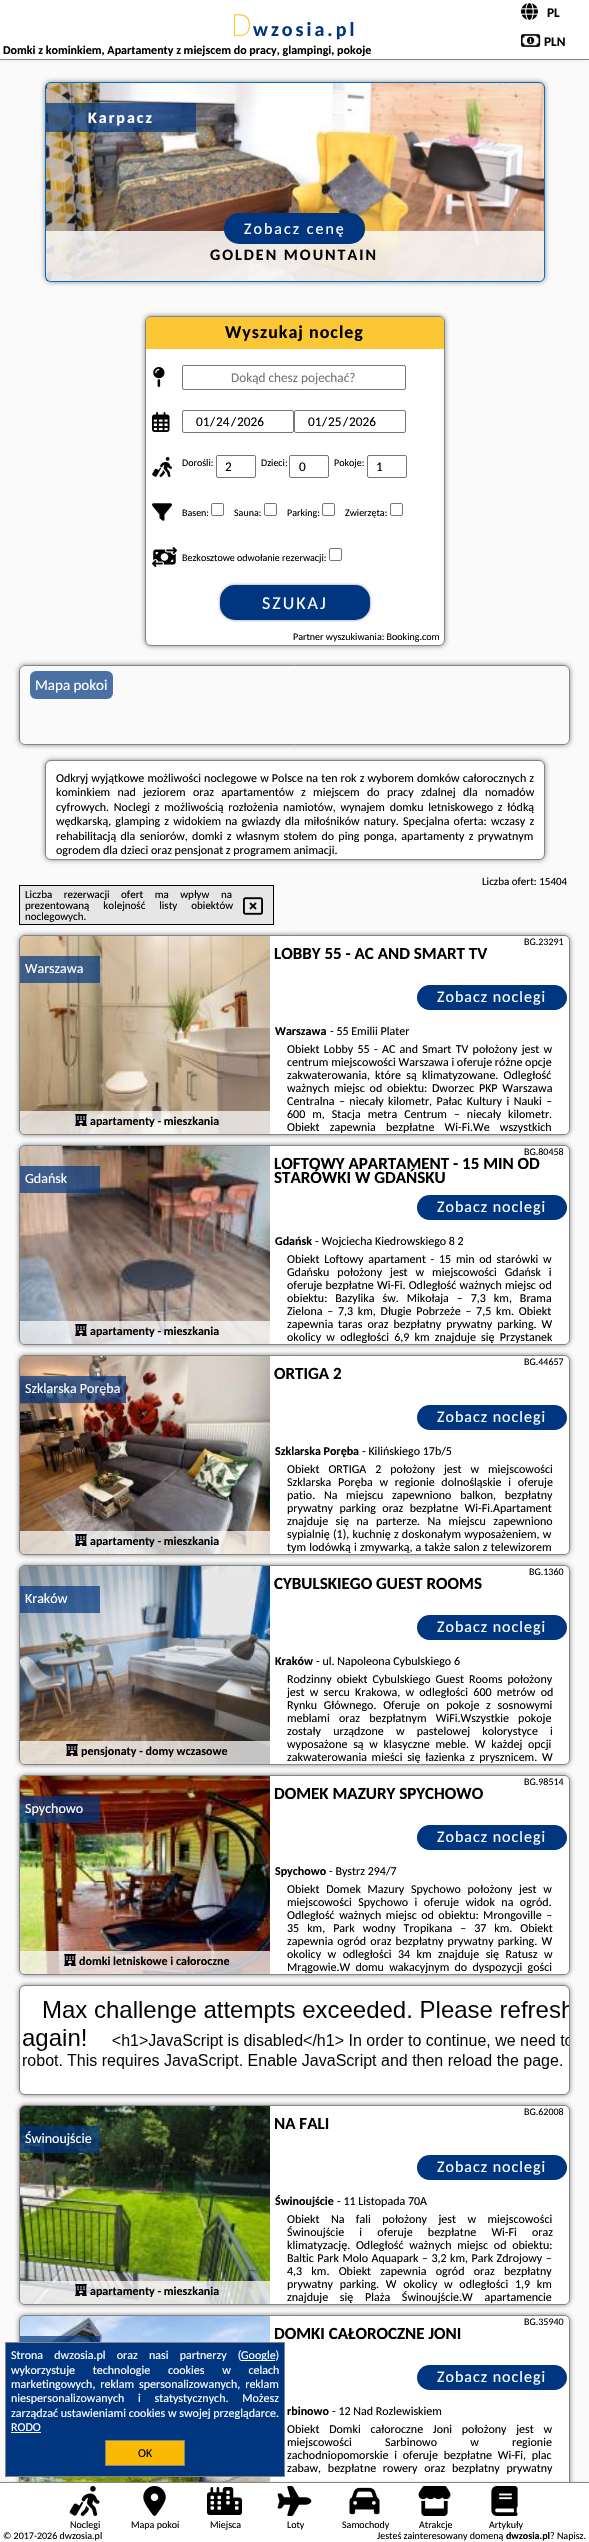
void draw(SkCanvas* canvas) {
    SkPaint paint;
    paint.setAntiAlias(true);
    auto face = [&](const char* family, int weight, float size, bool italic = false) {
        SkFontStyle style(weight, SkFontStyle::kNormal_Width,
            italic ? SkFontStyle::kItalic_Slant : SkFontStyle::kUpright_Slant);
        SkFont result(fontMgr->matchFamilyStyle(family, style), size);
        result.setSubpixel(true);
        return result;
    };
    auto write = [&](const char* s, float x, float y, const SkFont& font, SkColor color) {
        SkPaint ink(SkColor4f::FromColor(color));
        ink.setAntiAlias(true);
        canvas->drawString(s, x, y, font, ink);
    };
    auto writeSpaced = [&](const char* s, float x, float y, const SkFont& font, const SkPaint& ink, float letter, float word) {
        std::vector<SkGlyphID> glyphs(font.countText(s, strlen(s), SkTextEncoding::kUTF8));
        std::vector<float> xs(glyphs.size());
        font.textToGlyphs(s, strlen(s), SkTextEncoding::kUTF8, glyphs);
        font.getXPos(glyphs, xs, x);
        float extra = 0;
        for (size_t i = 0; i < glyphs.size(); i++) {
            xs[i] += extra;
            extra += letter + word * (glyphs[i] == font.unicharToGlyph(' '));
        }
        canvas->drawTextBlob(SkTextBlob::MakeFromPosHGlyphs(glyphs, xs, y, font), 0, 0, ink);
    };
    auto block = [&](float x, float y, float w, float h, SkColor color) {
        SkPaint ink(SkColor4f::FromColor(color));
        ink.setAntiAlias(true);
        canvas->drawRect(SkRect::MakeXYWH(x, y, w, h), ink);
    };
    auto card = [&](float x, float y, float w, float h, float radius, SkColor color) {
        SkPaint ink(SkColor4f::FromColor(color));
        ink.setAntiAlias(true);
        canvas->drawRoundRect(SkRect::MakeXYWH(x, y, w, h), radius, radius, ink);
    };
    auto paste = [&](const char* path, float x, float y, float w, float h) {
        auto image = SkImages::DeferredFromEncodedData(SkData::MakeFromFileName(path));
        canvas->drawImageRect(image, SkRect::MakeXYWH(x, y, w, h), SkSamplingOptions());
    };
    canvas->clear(SkColorSetRGB(250, 250, 250));
    paint.setColor(SkColorSetRGB(133, 133, 133));
    paint.setMaskFilter(SkMaskFilter::MakeBlur(kNormal_SkBlurStyle, 2.5f));
    canvas->drawRect(SkRect::MakeXYWH(0, -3, 589, 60), paint);
    paint.setMaskFilter(nullptr);
    block(0, 0, 589, 59, SK_ColorWHITE);
    block(0, 59, 589, 1, SkColorSetRGB(133, 133, 133));
    paste("pic1.png", 521, 3, 17, 17);
    auto kFont1 = face("Carlito", 700, 13.25f);
    write("PL", 547, 17, kFont1, SK_ColorBLACK);
    auto kFont2 = face("Noto Sans", 100, 30);
    paint.setColor(SkColorSetRGB(250, 185, 2));
    writeSpaced("D", 231, 36, kFont2, paint, 3, 0);
    auto kFont3 = face("Carlito", 700, 20);
    paint.setColor(SkColorSetRGB(0, 54, 127));
    writeSpaced("wzosia.pl", 253, 36, kFont3, paint, 3, 0);
    paste("pic2.png", 521, 34, 20, 13);
    write("PLN", 544, 46, kFont1, SK_ColorBLACK);
    auto kFont4 = face("Carlito", 700, 12);
    write("Domki z kominkiem, Apartamenty z miejscem do pracy, glampingi, pokoje", 3, 54, kFont4, SK_ColorBLACK);
    paint.setColor(SkColorSetRGB(133, 133, 133));
    paint.setMaskFilter(SkMaskFilter::MakeBlur(kNormal_SkBlurStyle, 2.5f));
    canvas->drawRoundRect(SkRect::MakeXYWH(45, 82, 500, 200), 6, 6, paint);
    paint.setMaskFilter(nullptr);
    paste("pic3.png", 46, 82, 498, 199);
    paint.setStyle(SkPaint::kStroke_Style);
    paint.setStrokeWidth(1);
    paint.setColor(SkColorSetRGB(0, 110, 197));
    canvas->drawRoundRect(SkRect::MakeXYWH(45.5f, 82.5f, 499, 199), 5.5f, 5.5f, paint);
    block(46, 103, 150, 29, SkColorSetARGB(179, 0, 54, 127));
    auto kFont5 = face("Carlito", 700, 16);
    paint.setStyle(SkPaint::kFill_Style);
    paint.setColor(SK_ColorWHITE);
    writeSpaced("Karpacz", 88, 123, kFont5, paint, 2, 0);
    paint.setColor(SkColorSetARGB(217, 250, 250, 250));
    canvas->drawPath(SkPathBuilder().moveTo(46, 231).lineTo(544, 231).lineTo(544, 276).cubicTo(544, 279, 542, 281, 539, 281).lineTo(51, 281).cubicTo(48, 281, 46, 279, 46, 276).close().detach(), paint);
    card(224, 213, 141, 31, 15, SkColorSetRGB(0, 54, 127));
    auto kFont6 = face("Carlito", 400, 16);
    paint.setColor(SK_ColorWHITE);
    writeSpaced("Zobacz cenę", 244, 234, kFont6, paint, 2, 0);
    paint.setColor(SK_ColorBLACK);
    writeSpaced("GOLDEN MOUNTAIN", 210, 260, kFont5, paint, 2, 0);
    paint.setColor(SkColorSetRGB(133, 133, 133));
    paint.setMaskFilter(SkMaskFilter::MakeBlur(kNormal_SkBlurStyle, 2.5f));
    canvas->drawRoundRect(SkRect::MakeXYWH(145, 316, 300, 330), 6, 6, paint);
    paint.setMaskFilter(nullptr);
    paint.setColor(SK_ColorWHITE);
    canvas->drawRoundRect(SkRect::MakeXYWH(145.5f, 316.5f, 299, 329), 5.5f, 5.5f, paint);
    paint.setStyle(SkPaint::kStroke_Style);
    paint.setColor(SkColorSetRGB(133, 133, 133));
    canvas->drawRoundRect(SkRect::MakeXYWH(145.5f, 316.5f, 299, 329), 5.5f, 5.5f, paint);
    paint.setStyle(SkPaint::kFill_Style);
    paint.setColor(SkColorSetARGB(204, 250, 185, 2));
    canvas->drawPath(SkPathBuilder().moveTo(151, 317).lineTo(439, 317).cubicTo(442, 317, 444, 319, 444, 322).lineTo(444, 349).lineTo(146, 349).lineTo(146, 322).cubicTo(146, 319, 148, 317, 151, 317).close().detach(), paint);
    auto kFont7 = face("Carlito", 700, 18);
    paint.setColor(SK_ColorBLACK);
    writeSpaced("Wyszukaj nocleg", 225, 338, kFont7, paint, 1, 0);
    paste("pic4.png", 153, 367, 12, 20);
    paint.setStyle(SkPaint::kStroke_Style);
    paint.setColor(SkColorSetRGB(118, 118, 118));
    canvas->drawRoundRect(SkRect::MakeXYWH(182.5f, 365.5f, 223, 24), 1.5f, 1.5f, paint);
    auto kFont8 = face("Carlito", 400, 13.25f);
    write("Dokąd chesz pojechać?", 231, 382, kFont8, SkColorSetRGB(117, 117, 117));
    paste("pic5.png", 152, 412, 18, 20);
    canvas->drawRoundRect(SkRect::MakeXYWH(182.5f, 410.5f, 111, 22), 1.5f, 1.5f, paint);
    write("01", 196, 426, kFont8, SK_ColorBLACK);
    write("/", 210, 426, kFont8, SK_ColorBLACK);
    write("24", 216, 426, kFont8, SK_ColorBLACK);
    write("/", 231, 426, kFont8, SK_ColorBLACK);
    write("2026", 237, 426, kFont8, SK_ColorBLACK);
    canvas->drawRoundRect(SkRect::MakeXYWH(294.5f, 410.5f, 111, 22), 1.5f, 1.5f, paint);
    write("01", 308, 426, kFont8, SK_ColorBLACK);
    write("/", 322, 426, kFont8, SK_ColorBLACK);
    write("25", 328, 426, kFont8, SK_ColorBLACK);
    write("/", 343, 426, kFont8, SK_ColorBLACK);
    write("2026", 349, 426, kFont8, SK_ColorBLACK);
    paste("pic6.png", 152, 457, 20, 20);
    auto kFont9 = face("Carlito", 400, 10);
    write("Dorośli:", 182, 466, kFont9, SK_ColorBLACK);
    canvas->drawRoundRect(SkRect::MakeXYWH(216.5f, 455.5f, 39, 22), 1.5f, 1.5f, paint);
    write("2", 225, 471, kFont8, SK_ColorBLACK);
    write("Dzieci:", 261, 466, kFont9, SK_ColorBLACK);
    canvas->drawRoundRect(SkRect::MakeXYWH(289.5f, 455.5f, 39, 22), 1.5f, 1.5f, paint);
    write("0", 299, 471, kFont8, SK_ColorBLACK);
    write("Pokoje:", 334, 466, kFont9, SK_ColorBLACK);
    canvas->drawRoundRect(SkRect::MakeXYWH(367.5f, 455.5f, 39, 22), 1.5f, 1.5f, paint);
    write("1", 376, 471, kFont8, SK_ColorBLACK);
    paste("pic7.png", 152, 503, 20, 18);
    write("Basen:", 182, 516, kFont9, SK_ColorBLACK);
    canvas->drawRoundRect(SkRect::MakeXYWH(211.5f, 503.5f, 12, 12), 1.5f, 1.5f, paint);
    write("Sauna:", 234, 516, kFont9, SK_ColorBLACK);
    canvas->drawRoundRect(SkRect::MakeXYWH(264.5f, 503.5f, 12, 12), 1.5f, 1.5f, paint);
    write("Parking:", 287, 516, kFont9, SK_ColorBLACK);
    canvas->drawRoundRect(SkRect::MakeXYWH(322.5f, 503.5f, 12, 12), 1.5f, 1.5f, paint);
    write("Zwierzęta:", 345, 516, kFont9, SK_ColorBLACK);
    canvas->drawRoundRect(SkRect::MakeXYWH(390.5f, 503.5f, 12, 12), 1.5f, 1.5f, paint);
    paste("pic8.png", 152, 547, 25, 20);
    write("Bezkosztowe odwołanie rezerwacji:", 182, 561, kFont9, SK_ColorBLACK);
    canvas->drawRoundRect(SkRect::MakeXYWH(329.5f, 548.5f, 12, 12), 1.5f, 1.5f, paint);
    paint.setStyle(SkPaint::kFill_Style);
    paint.setColor(SkColorSetRGB(133, 133, 133));
    paint.setMaskFilter(SkMaskFilter::MakeBlur(kNormal_SkBlurStyle, 1.5f));
    canvas->drawRoundRect(SkRect::MakeXYWH(220, 585, 150, 35), 15, 15, paint);
    paint.setMaskFilter(nullptr);
    card(220, 585, 150, 35, 15, SkColorSetRGB(0, 54, 127));
    auto kFont10 = face("Carlito", 400, 18);
    paint.setColor(SK_ColorWHITE);
    writeSpaced("SZUKAJ", 262, 609, kFont10, paint, 2, 0);
    write("Partner wyszukiwania: Booking.com", 293, 640, kFont9, SK_ColorBLACK);
    canvas->save();
    canvas->clipPath(SkPathBuilder(SkPathFillType::kEvenOdd).moveTo(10, 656).lineTo(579, 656).lineTo(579, 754).lineTo(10, 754).close().moveTo(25, 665).lineTo(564, 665).cubicTo(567.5f, 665, 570, 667.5f, 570, 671).lineTo(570, 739).cubicTo(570, 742.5f, 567.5f, 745, 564, 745).lineTo(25, 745).cubicTo(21.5f, 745, 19, 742.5f, 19, 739).lineTo(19, 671).cubicTo(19, 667.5f, 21.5f, 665, 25, 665).close().detach(), true);
    paint.setColor(SkColorSetRGB(133, 133, 133));
    paint.setMaskFilter(SkMaskFilter::MakeBlur(kNormal_SkBlurStyle, 2.5f));
    canvas->drawRoundRect(SkRect::MakeXYWH(19, 665, 551, 80), 6, 6, paint);
    paint.setMaskFilter(nullptr);
    canvas->restore();
    paint.setStyle(SkPaint::kStroke_Style);
    canvas->drawRoundRect(SkRect::MakeXYWH(19.5f, 665.5f, 550, 79), 5.5f, 5.5f, paint);
    card(30, 671, 83, 28, 6, SkColorSetRGB(75, 113, 164));
    auto kFont11 = face("Carlito", 400, 15);
    write("Mapa pokoi", 35, 690, kFont11, SK_ColorWHITE);
    paint.setStyle(SkPaint::kFill_Style);
    paint.setMaskFilter(SkMaskFilter::MakeBlur(kNormal_SkBlurStyle, 2.5f));
    canvas->drawRoundRect(SkRect::MakeXYWH(45, 760, 500, 100), 6, 6, paint);
    paint.setMaskFilter(nullptr);
    paint.setColor(SK_ColorWHITE);
    canvas->drawRoundRect(SkRect::MakeXYWH(45.5f, 760.5f, 499, 99), 5.5f, 5.5f, paint);
    paint.setStyle(SkPaint::kStroke_Style);
    paint.setColor(SkColorSetRGB(133, 133, 133));
    canvas->drawRoundRect(SkRect::MakeXYWH(45.5f, 760.5f, 499, 99), 5.5f, 5.5f, paint);
    auto kFont12 = face("Carlito", 400, 12);
    paint.setStyle(SkPaint::kFill_Style);
    paint.setColor(SK_ColorBLACK);
    writeSpaced("Odkryj wyjątkowe możliwości noclegowe w Polsce na ten rok z wyborem domków całorocznych z", 56, 782, kFont12, paint, 0, 0.4f);
    writeSpaced("kominkiem nad jeziorem oraz apartamentów z miejscem do pracy zdalnej dla nomadów", 56, 796, kFont12, paint, 0, 4.6f);
    writeSpaced("cyfrowych. Noclegi z możliwością rozłożenia namiotów, wynajem domku letniskowego z łódką", 56, 811, kFont12, paint, 0, 2);
    writeSpaced("wędkarską, glamping z widokiem na gwiazdy dla miłośników natury. Specjalna oferta: wczasy z", 56, 825, kFont12, paint, 0, 1.5f);
    writeSpaced("rehabilitacją dla seniorów, domki z własnym stołem do ping ponga, apartamenty z prywatnym", 56, 840, kFont12, paint, 0, 1.6f);
    write("ogrodem dla dzieci oraz pensjonat z programem animacji.", 56, 854, kFont12, SK_ColorBLACK);
    auto kFont13 = face("Carlito", 400, 11);
    write("Liczba ofert: 15404", 482, 885, kFont13, SK_ColorBLACK);
    paint.setColor(SkColorSetRGB(230, 230, 230));
    canvas->drawRect(SkRect::MakeXYWH(19.5f, 885.5f, 254, 39), paint);
    paint.setStyle(SkPaint::kStroke_Style);
    paint.setColor(SK_ColorBLACK);
    canvas->drawRect(SkRect::MakeXYWH(19.5f, 885.5f, 254, 39), paint);
    paint.setStyle(SkPaint::kFill_Style);
    writeSpaced("Liczba rezerwacji ofert ma wpływ na", 25, 898, kFont13, paint, 0, 9);
    writeSpaced("prezentowaną kolejność listy obiektów", 25, 909, kFont13, paint, 0, 11.5f);
    paste("pic9.png", 243, 897, 20, 18);
    write("noclegowych.", 25, 920, kFont13, SK_ColorBLACK);
    paint.setColor(SkColorSetRGB(133, 133, 133));
    paint.setMaskFilter(SkMaskFilter::MakeBlur(kNormal_SkBlurStyle, 2.5f));
    canvas->drawRoundRect(SkRect::MakeXYWH(19, 935, 551, 200), 6, 6, paint);
    paint.setMaskFilter(nullptr);
    paint.setStyle(SkPaint::kStroke_Style);
    canvas->drawRoundRect(SkRect::MakeXYWH(19.5f, 935.5f, 550, 199), 5.5f, 5.5f, paint);
    paste("pic10.png", 20, 936, 250, 198);
    paint.setStyle(SkPaint::kFill_Style);
    paint.setColor(SK_ColorWHITE);
    canvas->drawPath(SkPathBuilder().moveTo(270, 936).lineTo(564, 936).cubicTo(567, 936, 569, 938, 569, 941).lineTo(569, 1014).lineTo(270, 1014).close().detach(), paint);
    write("BG.23291", 524, 945, kFont9, SK_ColorBLACK);
    auto kFont14 = face("Carlito", 700, 17);
    write("LOBBY 55 - AC AND SMART TV", 274, 959, kFont14, SK_ColorBLACK);
    block(20, 956, 80, 27, SkColorSetARGB(179, 0, 54, 127));
    auto kFont15 = face("Carlito", 400, 14);
    write("Warszawa", 25, 973, kFont15, SK_ColorWHITE);
    card(417, 985, 150, 25, 12.5f, SkColorSetRGB(0, 54, 127));
    writeSpaced("Zobacz noclegi", 437, 1002, kFont6, paint, 1, 0);
    paint.setColor(SkColorSetARGB(191, 250, 250, 250));
    canvas->drawPath(SkPathBuilder().moveTo(20, 1111).lineTo(270, 1111).lineTo(270, 1134).lineTo(25, 1134).cubicTo(22, 1134, 20, 1132, 20, 1129).close().detach(), paint);
    paste("pic11.png", 75, 1114, 12, 12);
    write("apartamenty - mieszkania", 90, 1125, kFont4, SK_ColorBLACK);
    paint.setColor(SK_ColorWHITE);
    canvas->drawPath(SkPathBuilder().moveTo(270, 1014).lineTo(569, 1014).lineTo(569, 1129).cubicTo(569, 1132, 567, 1134, 564, 1134).lineTo(270, 1134).close().detach(), paint);
    write("Warszawa", 275, 1035, kFont4, SK_ColorBLACK);
    write("- 55 Emilii Plater", 330, 1035, kFont12, SK_ColorBLACK);
    paint.setColor(SK_ColorBLACK);
    writeSpaced("Obiekt Lobby 55 - AC and Smart TV położony jest w", 287, 1053, kFont12, paint, 0, 1.6f);
    write("centrum miejscowości Warszawa i oferuje różne opcje", 287, 1066, kFont12, SK_ColorBLACK);
    writeSpaced("zakwaterowania, które są klimatyzowane. Odległość", 287, 1079, kFont12, paint, 0, 2.5f);
    writeSpaced("ważnych miejsc od obiektu: Dworzec PKP Warszawa", 287, 1092, kFont12, paint, 0, 2);
    writeSpaced("Centralna – niecały kilometr, Pałac Kultury i Nauki –", 287, 1105, kFont12, paint, 0, 1.75f);
    writeSpaced("600 m, Stacja metra Centrum – niecały kilometr.", 287, 1118, kFont12, paint, 0, 4.25f);
    writeSpaced("Obiekt zapewnia bezpłatne Wi-Fi.We wszystkich", 287, 1131, kFont12, paint, 0, 7.5f);
    paint.setColor(SkColorSetRGB(133, 133, 133));
    paint.setMaskFilter(SkMaskFilter::MakeBlur(kNormal_SkBlurStyle, 2.5f));
    canvas->drawRoundRect(SkRect::MakeXYWH(19, 1145, 551, 200), 6, 6, paint);
    paint.setMaskFilter(nullptr);
    paint.setStyle(SkPaint::kStroke_Style);
    canvas->drawRoundRect(SkRect::MakeXYWH(19.5f, 1145.5f, 550, 199), 5.5f, 5.5f, paint);
    paste("pic12.png", 20, 1146, 250, 198);
    paint.setStyle(SkPaint::kFill_Style);
    paint.setColor(SK_ColorWHITE);
    canvas->drawPath(SkPathBuilder().moveTo(270, 1146).lineTo(564, 1146).cubicTo(567, 1146, 569, 1148, 569, 1151).lineTo(569, 1224).lineTo(270, 1224).close().detach(), paint);
    write("BG.80458", 524, 1155, kFont9, SK_ColorBLACK);
    block(20, 1166, 80, 27, SkColorSetARGB(179, 0, 54, 127));
    write("Gdańsk", 25, 1183, kFont15, SK_ColorWHITE);
    write("LOFTOWY APARTAMENT - 15 MIN OD", 274, 1169, kFont14, SK_ColorBLACK);
    write("STARÓWKI W GDAŃSKU", 274, 1183, kFont14, SK_ColorBLACK);
    card(417, 1195, 150, 25, 12.5f, SkColorSetRGB(0, 54, 127));
    writeSpaced("Zobacz noclegi", 437, 1212, kFont6, paint, 1, 0);
    paint.setColor(SkColorSetARGB(191, 250, 250, 250));
    canvas->drawPath(SkPathBuilder().moveTo(20, 1321).lineTo(270, 1321).lineTo(270, 1344).lineTo(25, 1344).cubicTo(22, 1344, 20, 1342, 20, 1339).close().detach(), paint);
    paste("pic13.png", 75, 1324, 12, 12);
    write("apartamenty - mieszkania", 90, 1335, kFont4, SK_ColorBLACK);
    paint.setColor(SK_ColorWHITE);
    canvas->drawPath(SkPathBuilder().moveTo(270, 1224).lineTo(569, 1224).lineTo(569, 1339).cubicTo(569, 1342, 567, 1344, 564, 1344).lineTo(270, 1344).close().detach(), paint);
    write("Gdańsk", 275, 1245, kFont4, SK_ColorBLACK);
    write("- Wojciecha Kiedrowskiego 8 2", 315, 1245, kFont12, SK_ColorBLACK);
    paint.setColor(SK_ColorBLACK);
    writeSpaced("Obiekt Loftowy apartament - 15 min od starówki w", 287, 1263, kFont12, paint, 0, 2);
    writeSpaced("Gdańsku położony jest w miejscowości Gdańsk i", 287, 1276, kFont12, paint, 0, 5.25f);
    writeSpaced("oferuje bezpłatne Wi-Fi. Odległość ważnych miejsc od", 287, 1289, kFont12, paint, 0, 0.5f);
    writeSpaced("obiektu: Bazylika św. Mikołaja – 7,3 km, Brama", 287, 1302, kFont12, paint, 0, 5.25f);
    writeSpaced("Zielona – 7,3 km, Długie Pobrzeże – 7,5 km. Obiekt", 287, 1315, kFont12, paint, 0, 2);
    writeSpaced("zapewnia taras oraz bezpłatny prywatny parking. W", 287, 1328, kFont12, paint, 0, 2.25f);
    writeSpaced("okolicy w odległości 6,9 km znajduje się Przystanek", 287, 1341, kFont12, paint, 0, 2.5f);
    paint.setColor(SkColorSetRGB(133, 133, 133));
    paint.setMaskFilter(SkMaskFilter::MakeBlur(kNormal_SkBlurStyle, 2.5f));
    canvas->drawRoundRect(SkRect::MakeXYWH(19, 1355, 551, 200), 6, 6, paint);
    paint.setMaskFilter(nullptr);
    paint.setStyle(SkPaint::kStroke_Style);
    canvas->drawRoundRect(SkRect::MakeXYWH(19.5f, 1355.5f, 550, 199), 5.5f, 5.5f, paint);
    paste("pic14.png", 20, 1356, 250, 198);
    paint.setStyle(SkPaint::kFill_Style);
    paint.setColor(SK_ColorWHITE);
    canvas->drawPath(SkPathBuilder().moveTo(270, 1356).lineTo(564, 1356).cubicTo(567, 1356, 569, 1358, 569, 1361).lineTo(569, 1434).lineTo(270, 1434).close().detach(), paint);
    write("BG.44657", 524, 1365, kFont9, SK_ColorBLACK);
    write("ORTIGA 2", 274, 1379, kFont14, SK_ColorBLACK);
    block(20, 1376, 106, 27, SkColorSetARGB(179, 0, 54, 127));
    write("Szklarska Poręba", 25, 1393, kFont15, SK_ColorWHITE);
    card(417, 1405, 150, 25, 12.5f, SkColorSetRGB(0, 54, 127));
    writeSpaced("Zobacz noclegi", 437, 1422, kFont6, paint, 1, 0);
    paint.setColor(SkColorSetARGB(191, 250, 250, 250));
    canvas->drawPath(SkPathBuilder().moveTo(20, 1531).lineTo(270, 1531).lineTo(270, 1554).lineTo(25, 1554).cubicTo(22, 1554, 20, 1552, 20, 1549).close().detach(), paint);
    paste("pic15.png", 75, 1534, 12, 12);
    write("apartamenty - mieszkania", 90, 1545, kFont4, SK_ColorBLACK);
    paint.setColor(SK_ColorWHITE);
    canvas->drawPath(SkPathBuilder().moveTo(270, 1434).lineTo(569, 1434).lineTo(569, 1549).cubicTo(569, 1552, 567, 1554, 564, 1554).lineTo(270, 1554).close().detach(), paint);
    write("Szklarska Poręba", 275, 1455, kFont4, SK_ColorBLACK);
    write("- Kilińskiego 17b/5", 362, 1455, kFont12, SK_ColorBLACK);
    paint.setColor(SK_ColorBLACK);
    writeSpaced("Obiekt ORTIGA 2 położony jest w miejscowości", 287, 1473, kFont12, paint, 0, 6.25f);
    writeSpaced("Szklarska Poręba w regionie dolnośląskie i oferuje", 287, 1486, kFont12, paint, 0, 4);
    writeSpaced("patio. Na miejscu zapewniono balkon, bezpłatny", 287, 1499, kFont12, paint, 0, 6);
    writeSpaced("prywatny parking oraz bezpłatne Wi-Fi.Apartament", 287, 1512, kFont12, paint, 0, 3.75f);
    writeSpaced("znajduje się na parterze. Na miejscu zapewniono", 287, 1525, kFont12, paint, 0, 4.75f);
    writeSpaced("sypialnię (1), kuchnię z doskonałym wyposażeniem, w", 287, 1538, kFont12, paint, 0, 0.5f);
    writeSpaced("tym lodówką i zmywarką, a także salon z telewizorem", 287, 1551, kFont12, paint, 0, 0.5f);
    paint.setColor(SkColorSetRGB(133, 133, 133));
    paint.setMaskFilter(SkMaskFilter::MakeBlur(kNormal_SkBlurStyle, 2.5f));
    canvas->drawRoundRect(SkRect::MakeXYWH(19, 1565, 551, 200), 6, 6, paint);
    paint.setMaskFilter(nullptr);
    paint.setStyle(SkPaint::kStroke_Style);
    canvas->drawRoundRect(SkRect::MakeXYWH(19.5f, 1565.5f, 550, 199), 5.5f, 5.5f, paint);
    paste("pic16.png", 20, 1566, 250, 198);
    paint.setStyle(SkPaint::kFill_Style);
    paint.setColor(SK_ColorWHITE);
    canvas->drawPath(SkPathBuilder().moveTo(270, 1566).lineTo(564, 1566).cubicTo(567, 1566, 569, 1568, 569, 1571).lineTo(569, 1644).lineTo(270, 1644).close().detach(), paint);
    write("BG.1360", 529, 1575, kFont9, SK_ColorBLACK);
    write("CYBULSKIEGO GUEST ROOMS", 274, 1589, kFont14, SK_ColorBLACK);
    block(20, 1586, 80, 27, SkColorSetARGB(179, 0, 54, 127));
    write("Kraków", 25, 1603, kFont15, SK_ColorWHITE);
    card(417, 1615, 150, 25, 12.5f, SkColorSetRGB(0, 54, 127));
    writeSpaced("Zobacz noclegi", 437, 1632, kFont6, paint, 1, 0);
    paint.setColor(SkColorSetARGB(191, 250, 250, 250));
    canvas->drawPath(SkPathBuilder().moveTo(20, 1741).lineTo(270, 1741).lineTo(270, 1764).lineTo(25, 1764).cubicTo(22, 1764, 20, 1762, 20, 1759).close().detach(), paint);
    paste("pic17.png", 66, 1744, 12, 12);
    write("pensjonaty - domy wczasowe", 81, 1755, kFont4, SK_ColorBLACK);
    paint.setColor(SK_ColorWHITE);
    canvas->drawPath(SkPathBuilder().moveTo(270, 1644).lineTo(569, 1644).lineTo(569, 1759).cubicTo(569, 1762, 567, 1764, 564, 1764).lineTo(270, 1764).close().detach(), paint);
    write("Kraków", 275, 1665, kFont4, SK_ColorBLACK);
    write("- ul. Napoleona Cybulskiego 6", 316, 1665, kFont12, SK_ColorBLACK);
    paint.setColor(SK_ColorBLACK);
    writeSpaced("Rodzinny obiekt Cybulskiego Guest Rooms położony", 287, 1683, kFont12, paint, 0, 2.25f);
    writeSpaced("jest w sercu Krakowa, w odległości 600 metrów od", 287, 1696, kFont12, paint, 0, 2.5f);
    writeSpaced("Rynku Głównego. Oferuje on pokoje z sosnowymi", 287, 1709, kFont12, paint, 0, 4);
    writeSpaced("meblami oraz bezpłatnym WiFi.Wszystkie pokoje", 287, 1722, kFont12, paint, 0, 6.5f);
    writeSpaced("zostały urządzone w pastelowej kolorystyce i", 287, 1735, kFont12, paint, 0, 9.5f);
    writeSpaced("wyposażone są w klasyczne meble. W każdej opcji", 287, 1748, kFont12, paint, 0, 3);
    writeSpaced("zakwaterowania mieści się łazienka z prysznicem. W", 287, 1761, kFont12, paint, 0, 2);
    paint.setColor(SkColorSetRGB(133, 133, 133));
    paint.setMaskFilter(SkMaskFilter::MakeBlur(kNormal_SkBlurStyle, 2.5f));
    canvas->drawRoundRect(SkRect::MakeXYWH(19, 1775, 551, 200), 6, 6, paint);
    paint.setMaskFilter(nullptr);
    paint.setStyle(SkPaint::kStroke_Style);
    canvas->drawRoundRect(SkRect::MakeXYWH(19.5f, 1775.5f, 550, 199), 5.5f, 5.5f, paint);
    paste("pic18.png", 20, 1776, 250, 198);
    paint.setStyle(SkPaint::kFill_Style);
    paint.setColor(SK_ColorWHITE);
    canvas->drawPath(SkPathBuilder().moveTo(270, 1776).lineTo(564, 1776).cubicTo(567, 1776, 569, 1778, 569, 1781).lineTo(569, 1854).lineTo(270, 1854).close().detach(), paint);
    write("BG.98514", 524, 1785, kFont9, SK_ColorBLACK);
    write("DOMEK MAZURY SPYCHOWO", 274, 1799, kFont14, SK_ColorBLACK);
    block(20, 1796, 80, 27, SkColorSetARGB(179, 0, 54, 127));
    write("Spychowo", 25, 1813, kFont15, SK_ColorWHITE);
    card(417, 1825, 150, 25, 12.5f, SkColorSetRGB(0, 54, 127));
    writeSpaced("Zobacz noclegi", 437, 1842, kFont6, paint, 1, 0);
    paint.setColor(SkColorSetARGB(191, 250, 250, 250));
    canvas->drawPath(SkPathBuilder().moveTo(20, 1951).lineTo(270, 1951).lineTo(270, 1974).lineTo(25, 1974).cubicTo(22, 1974, 20, 1972, 20, 1969).close().detach(), paint);
    paste("pic19.png", 64, 1954, 12, 12);
    write("domki letniskowe i całoroczne", 79, 1965, kFont4, SK_ColorBLACK);
    paint.setColor(SK_ColorWHITE);
    canvas->drawPath(SkPathBuilder().moveTo(270, 1854).lineTo(569, 1854).lineTo(569, 1969).cubicTo(569, 1972, 567, 1974, 564, 1974).lineTo(270, 1974).close().detach(), paint);
    write("Spychowo", 275, 1875, kFont4, SK_ColorBLACK);
    write("- Bystrz 294/7", 329, 1875, kFont12, SK_ColorBLACK);
    paint.setColor(SK_ColorBLACK);
    writeSpaced("Obiekt Domek Mazury Spychowo położony jest w", 287, 1893, kFont12, paint, 0, 4);
    writeSpaced("miejscowości Spychowo i oferuje widok na ogród.", 287, 1906, kFont12, paint, 0, 3.75f);
    writeSpaced("Odległość ważnych miejsc od obiektu: Mrongoville –", 287, 1919, kFont12, paint, 0, 1.75f);
    writeSpaced("35 km, Park wodny Tropikana – 37 km. Obiekt", 287, 1932, kFont12, paint, 0, 5.25f);
    writeSpaced("zapewnia ogród oraz bezpłatny prywatny parking. W", 287, 1945, kFont12, paint, 0, 1.5f);
    writeSpaced("okolicy w odległości 34 km znajduje się Ratusz w", 287, 1958, kFont12, paint, 0, 3.75f);
    writeSpaced("Mrągowie.W domu wakacyjnym do dyspozycji gości", 287, 1971, kFont12, paint, 0, 2.5f);
    paint.setColor(SkColorSetRGB(133, 133, 133));
    paint.setMaskFilter(SkMaskFilter::MakeBlur(kNormal_SkBlurStyle, 2.5f));
    canvas->drawRoundRect(SkRect::MakeXYWH(19, 1985, 551, 110), 6, 6, paint);
    paint.setMaskFilter(nullptr);
    paint.setColor(SK_ColorWHITE);
    canvas->drawRoundRect(SkRect::MakeXYWH(19.5f, 1985.5f, 550, 109), 5.5f, 5.5f, paint);
    paint.setStyle(SkPaint::kStroke_Style);
    paint.setColor(SkColorSetRGB(133, 133, 133));
    canvas->drawRoundRect(SkRect::MakeXYWH(19.5f, 1985.5f, 550, 109), 5.5f, 5.5f, paint);
    paste("pic20.png", 23, 2001, 546, 68);
    paint.setStyle(SkPaint::kFill_Style);
    paint.setMaskFilter(SkMaskFilter::MakeBlur(kNormal_SkBlurStyle, 2.5f));
    canvas->drawRoundRect(SkRect::MakeXYWH(19, 2105, 551, 200), 6, 6, paint);
    paint.setMaskFilter(nullptr);
    paint.setStyle(SkPaint::kStroke_Style);
    canvas->drawRoundRect(SkRect::MakeXYWH(19.5f, 2105.5f, 550, 199), 5.5f, 5.5f, paint);
    paste("pic21.png", 20, 2106, 250, 198);
    paint.setStyle(SkPaint::kFill_Style);
    paint.setColor(SK_ColorWHITE);
    canvas->drawPath(SkPathBuilder().moveTo(270, 2106).lineTo(564, 2106).cubicTo(567, 2106, 569, 2108, 569, 2111).lineTo(569, 2184).lineTo(270, 2184).close().detach(), paint);
    write("BG.62008", 524, 2115, kFont9, SK_ColorBLACK);
    write("NA FALI", 274, 2129, kFont14, SK_ColorBLACK);
    block(20, 2126, 80, 27, SkColorSetARGB(179, 0, 54, 127));
    write("Świnoujście", 25, 2143, kFont15, SK_ColorWHITE);
    card(417, 2155, 150, 25, 12.5f, SkColorSetRGB(0, 54, 127));
    writeSpaced("Zobacz noclegi", 437, 2172, kFont6, paint, 1, 0);
    paint.setColor(SkColorSetARGB(191, 250, 250, 250));
    canvas->drawPath(SkPathBuilder().moveTo(20, 2281).lineTo(270, 2281).lineTo(270, 2304).lineTo(25, 2304).cubicTo(22, 2304, 20, 2302, 20, 2299).close().detach(), paint);
    paste("pic22.png", 75, 2284, 12, 12);
    write("apartamenty - mieszkania", 90, 2295, kFont4, SK_ColorBLACK);
    paint.setColor(SK_ColorWHITE);
    canvas->drawPath(SkPathBuilder().moveTo(270, 2184).lineTo(569, 2184).lineTo(569, 2299).cubicTo(569, 2302, 567, 2304, 564, 2304).lineTo(270, 2304).close().detach(), paint);
    write("Świnoujście", 275, 2205, kFont4, SK_ColorBLACK);
    write("- 11 Listopada 70A", 337, 2205, kFont12, SK_ColorBLACK);
    paint.setColor(SK_ColorBLACK);
    writeSpaced("Obiekt Na fali położony jest w miejscowości", 287, 2223, kFont12, paint, 0, 8.75f);
    writeSpaced("Świnoujście i oferuje bezpłatne Wi-Fi oraz", 287, 2236, kFont12, paint, 0, 12.5f);
    writeSpaced("klimatyzację. Odległość ważnych miejsc od obiektu:", 287, 2249, kFont12, paint, 0, 3);
    writeSpaced("Baltic Park Molo Aquapark – 3,2 km, Park Zdrojowy –", 287, 2262, kFont12, paint, 0, 0.75f);
    writeSpaced("4,3 km. Obiekt zapewnia ogród oraz bezpłatny", 287, 2275, kFont12, paint, 0, 6.5f);
    writeSpaced("prywatny parking. W okolicy w odległości 1,9 km", 287, 2288, kFont12, paint, 0, 4);
    writeSpaced("znajduje się Plaża Świnoujście.W apartamencie", 287, 2301, kFont12, paint, 0, 9);
    paint.setColor(SkColorSetRGB(133, 133, 133));
    paint.setMaskFilter(SkMaskFilter::MakeBlur(kNormal_SkBlurStyle, 2.5f));
    canvas->drawRoundRect(SkRect::MakeXYWH(19, 2315, 551, 200), 6, 6, paint);
    paint.setMaskFilter(nullptr);
    paint.setStyle(SkPaint::kStroke_Style);
    canvas->drawRoundRect(SkRect::MakeXYWH(19.5f, 2315.5f, 550, 199), 5.5f, 5.5f, paint);
    paste("pic23.png", 20, 2316, 250, 166);
    paint.setStyle(SkPaint::kFill_Style);
    paint.setColor(SK_ColorWHITE);
    canvas->drawPath(SkPathBuilder().moveTo(270, 2316).lineTo(564, 2316).cubicTo(567, 2316, 569, 2318, 569, 2321).lineTo(569, 2394).lineTo(270, 2394).close().detach(), paint);
    write("BG.35940", 524, 2325, kFont9, SK_ColorBLACK);
    block(20, 2336, 80, 6, SkColorSetARGB(179, 0, 54, 127));
    write("DOMKI CAŁOROCZNE JONI", 274, 2339, kFont14, SK_ColorBLACK);
    card(417, 2365, 150, 25, 12.5f, SkColorSetRGB(0, 54, 127));
    writeSpaced("Zobacz noclegi", 437, 2382, kFont6, paint, 1, 0);
    block(270, 2394, 299, 88, SK_ColorWHITE);
    write("rbinowo", 287, 2415, kFont4, SK_ColorBLACK);
    write("- 12 Nad Rozlewiskiem", 332, 2415, kFont12, SK_ColorBLACK);
    paint.setColor(SK_ColorBLACK);
    writeSpaced("Obiekt Domki całoroczne Joni położony jest w", 287, 2433, kFont12, paint, 0, 7);
    writeSpaced("miejscowości Sarbinowo w regionie", 287, 2446, kFont12, paint, 0, 30.5f);
    writeSpaced("zachodniopomorskie i oferuje bezpłatne Wi-Fi, plac", 287, 2459, kFont12, paint, 0, 3);
    writeSpaced("zabaw, bezpłatne rowery oraz bezpłatny prywatny", 287, 2472, kFont12, paint, 0, 4);
    paint.setColor(SkColorSetRGB(133, 133, 133));
    paint.setMaskFilter(SkMaskFilter::MakeBlur(kNormal_SkBlurStyle, 2.5f));
    canvas->drawRect(SkRect::MakeXYWH(0, 2485, 589, 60), paint);
    paint.setMaskFilter(nullptr);
    paint.setColor(SkColorSetRGB(0, 54, 127));
    canvas->drawRect(SkRect::MakeXYWH(5.5f, 2342.5f, 279, 134), paint);
    paint.setStyle(SkPaint::kStroke_Style);
    paint.setColor(SkColorSetRGB(133, 133, 133));
    canvas->drawRect(SkRect::MakeXYWH(5.5f, 2342.5f, 279, 134), paint);
    paint.setStyle(SkPaint::kFill_Style);
    paint.setColor(SK_ColorWHITE);
    writeSpaced("Strona dwzosia.pl oraz nasi partnerzy (", 11, 2359, kFont12, paint, 0, 8.5f);
    block(241, 2360, 34, 1, SK_ColorWHITE);
    write("Google)", 241, 2359, kFont12, SK_ColorWHITE);
    writeSpaced("wykorzystuje technologie cookies w celach", 11, 2374, kFont12, paint, 0, 15);
    writeSpaced("marketingowych, reklam spersonalizowanych, reklam", 11, 2388, kFont12, paint, 0, 2.25f);
    writeSpaced("niespersonalizowanych i statystycznych. Możesz", 11, 2402, kFont12, paint, 0, 11);
    write("zarządzać ustawieniami cookies w swojej przeglądarce.", 11, 2417, kFont12, SK_ColorWHITE);
    write("RODO", 11, 2431, kFont12, SK_ColorWHITE);
    block(11, 2432, 30, 1, SK_ColorWHITE);
    paint.setColor(SkColorSetRGB(250, 185, 2));
    canvas->drawRect(SkRect::MakeXYWH(105.5f, 2440.5f, 79, 25), paint);
    paint.setStyle(SkPaint::kStroke_Style);
    paint.setColor(SkColorSetRGB(133, 133, 133));
    canvas->drawRect(SkRect::MakeXYWH(105.5f, 2440.5f, 79, 25), paint);
    write("OK", 138, 2457, kFont12, SK_ColorBLACK);
    block(0, 2483, 589, 59, SK_ColorWHITE);
    block(0, 2482, 589, 1, SkColorSetRGB(133, 133, 133));
    paste("pic24.png", 69, 2486, 31, 30);
    write("Noclegi", 70, 2528, kFont9, SK_ColorBLACK);
    paste("pic25.png", 143, 2486, 23, 30);
    write("Mapa pokoi", 131, 2528, kFont9, SK_ColorBLACK);
    paste("pic26.png", 207, 2487, 35, 28);
    write("Miejsca", 210, 2528, kFont9, SK_ColorBLACK);
    paste("pic27.png", 277, 2486, 35, 30);
    write("Loty", 287, 2528, kFont9, SK_ColorBLACK);
    paste("pic28.png", 349, 2487, 31, 28);
    write("Samochody", 342, 2528, kFont9, SK_ColorBLACK);
    paste("pic29.png", 418, 2486, 33, 30);
    write("Atrakcje", 419, 2528, kFont9, SK_ColorBLACK);
    paste("pic30.png", 491, 2486, 27, 30);
    write("Artykuły", 489, 2528, kFont9, SK_ColorBLACK);
    write("© 2017-2026 dwzosia.pl", 3, 2539, kFont9, SK_ColorBLACK);
    write("Jesteś zainteresowany domeną", 377, 2539, kFont9, SK_ColorBLACK);
    auto kFont16 = face("Carlito", 700, 10);
    write("dwzosia.pl", 506, 2539, kFont16, SK_ColorBLACK);
    write("? Napisz.", 550, 2539, kFont9, SK_ColorBLACK);
}
